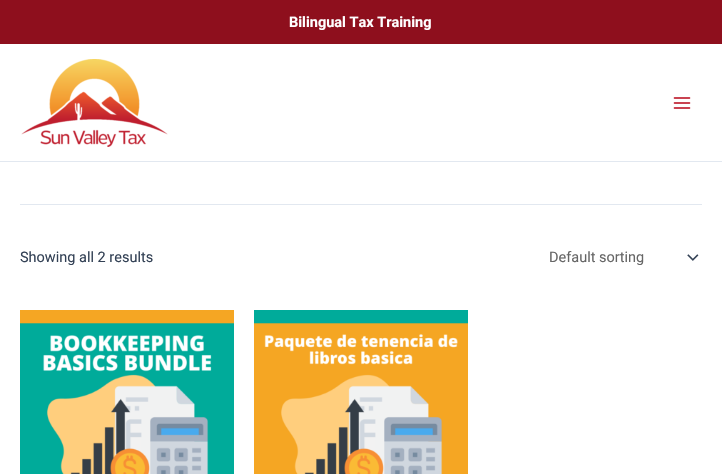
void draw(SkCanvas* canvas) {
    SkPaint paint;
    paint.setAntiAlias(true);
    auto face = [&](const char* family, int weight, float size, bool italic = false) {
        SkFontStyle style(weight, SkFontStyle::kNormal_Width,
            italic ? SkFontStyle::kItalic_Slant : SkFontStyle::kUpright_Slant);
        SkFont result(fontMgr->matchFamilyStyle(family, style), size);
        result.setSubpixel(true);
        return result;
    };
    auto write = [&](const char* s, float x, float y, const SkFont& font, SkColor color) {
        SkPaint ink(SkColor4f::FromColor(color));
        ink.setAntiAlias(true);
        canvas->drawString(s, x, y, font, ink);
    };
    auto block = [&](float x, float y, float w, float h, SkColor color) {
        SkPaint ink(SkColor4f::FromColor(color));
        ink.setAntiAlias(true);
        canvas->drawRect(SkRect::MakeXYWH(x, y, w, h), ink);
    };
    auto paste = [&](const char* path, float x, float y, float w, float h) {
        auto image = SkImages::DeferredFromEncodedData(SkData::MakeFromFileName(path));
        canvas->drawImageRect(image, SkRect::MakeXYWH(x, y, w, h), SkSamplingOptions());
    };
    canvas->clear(SK_ColorWHITE);
    block(0, 0, 722, 44, SkColorSetRGB(142, 15, 29));
    auto kFont1 = face("Roboto", 700, 14.5f);
    write("Bilingual Tax Training", 289, 27, kFont1, SK_ColorWHITE);
    block(0, 161, 722, 1, SkColorSetRGB(226, 232, 240));
    paste("pic1.png", 21, 59, 147, 88);
    paste("pic2.png", 673, 97, 18, 12);
    block(20, 204, 682, 1, SkColorSetRGB(226, 232, 240));
    auto kFont2 = face("Roboto", 400, 14.5f);
    write("Showing all 2 results", 20, 262, kFont2, SkColorSetRGB(51, 65, 85));
    paste("pic3.png", 687, 254, 12, 7);
    write("Default sorting", 549, 262, kFont2, SkColorSetRGB(102, 102, 102));
    paste("pic4.png", 20, 310, 214, 164);
    paste("pic5.png", 254, 310, 214, 164);
}
